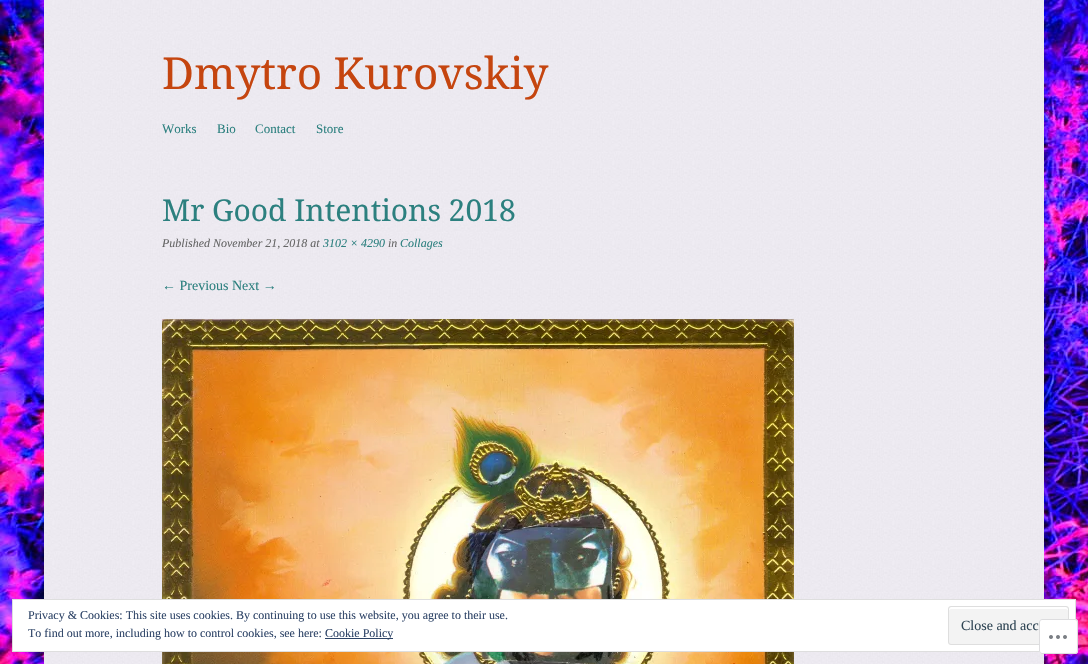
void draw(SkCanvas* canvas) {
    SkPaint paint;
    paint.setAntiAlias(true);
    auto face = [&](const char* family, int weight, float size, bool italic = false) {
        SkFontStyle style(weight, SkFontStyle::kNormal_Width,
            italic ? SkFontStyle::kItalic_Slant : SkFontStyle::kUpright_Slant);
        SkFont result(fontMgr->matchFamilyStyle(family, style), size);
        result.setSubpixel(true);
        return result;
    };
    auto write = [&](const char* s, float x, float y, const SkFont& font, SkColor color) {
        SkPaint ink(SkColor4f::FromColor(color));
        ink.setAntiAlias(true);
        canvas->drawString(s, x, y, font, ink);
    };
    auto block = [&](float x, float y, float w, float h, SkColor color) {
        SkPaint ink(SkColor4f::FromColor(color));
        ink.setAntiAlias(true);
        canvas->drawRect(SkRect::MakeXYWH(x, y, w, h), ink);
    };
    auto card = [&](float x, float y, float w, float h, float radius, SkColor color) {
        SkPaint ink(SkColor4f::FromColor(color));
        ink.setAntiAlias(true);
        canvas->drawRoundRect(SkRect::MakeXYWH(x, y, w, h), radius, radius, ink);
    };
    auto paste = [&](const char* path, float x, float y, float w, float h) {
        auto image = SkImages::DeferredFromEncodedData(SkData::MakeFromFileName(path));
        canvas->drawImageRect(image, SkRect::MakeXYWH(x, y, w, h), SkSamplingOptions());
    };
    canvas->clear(SK_ColorWHITE);
    paste("pic1.png", 0, 0, 1088, 664);
    paste("pic2.png", 44, 0, 1000, 664);
    auto kFont1 = face("Droid Serif", 400, 44);
    write("Dmytro Kurovskiy", 162, 89, kFont1, SkColorSetRGB(197, 69, 15));
    auto kFont2 = face("Liberation Serif", 400, 13);
    write("Works", 162, 133, kFont2, SkColorSetRGB(44, 128, 127));
    write("Bio", 217, 133, kFont2, SkColorSetRGB(44, 128, 127));
    write("Contact", 255, 133, kFont2, SkColorSetRGB(44, 128, 127));
    write("Store", 316, 133, kFont2, SkColorSetRGB(44, 128, 127));
    auto kFont3 = face("Droid Serif", 400, 30);
    write("Mr Good Intentions 2018", 162, 221, kFont3, SkColorSetRGB(44, 128, 127));
    auto kFont4 = face("Liberation Serif", 400, 12, true);
    write("Published November 21, 2018 at", 162, 247, kFont4, SkColorSetRGB(102, 102, 102));
    write("3102 × 4290", 323, 247, kFont4, SkColorSetRGB(44, 128, 127));
    write("in", 388, 247, kFont4, SkColorSetRGB(102, 102, 102));
    write("Collages", 400, 247, kFont4, SkColorSetRGB(44, 128, 127));
    auto kFont5 = face("Liberation Serif", 400, 14);
    write("← Previous Next →", 162, 290, kFont5, SkColorSetRGB(44, 128, 127));
    paste("pic3.png", 162, 319, 632, 345);
    paint.setColor(SK_ColorWHITE);
    canvas->drawRect(SkRect::MakeXYWH(12.5f, 599.5f, 1063, 52), paint);
    paint.setStyle(SkPaint::kStroke_Style);
    paint.setStrokeWidth(1);
    paint.setColor(SkColorSetRGB(222, 222, 222));
    canvas->drawRect(SkRect::MakeXYWH(12.5f, 599.5f, 1063, 52), paint);
    auto kFont6 = face("Liberation Serif", 400, 12);
    write("Privacy & Cookies: This site uses cookies. By continuing to use this website, you agree to their use.", 28, 619, kFont6, SkColorSetRGB(46, 68, 103));
    card(948, 606, 121, 39, 3, SkColorSetRGB(243, 243, 243));
    paint.setStyle(SkPaint::kFill_Style);
    paint.setColor(SK_ColorWHITE);
    canvas->drawPath(SkPathBuilder().moveTo(951, 609).lineTo(1066, 609).cubicTo(1067, 609, 1068, 610, 1068, 611).lineTo(1068, 609).cubicTo(1068, 608, 1067, 607, 1066, 607).lineTo(951, 607).cubicTo(950, 607, 949, 608, 949, 609).lineTo(949, 611).cubicTo(949, 610, 950, 609, 951, 609).close().detach(), paint);
    paint.setStyle(SkPaint::kStroke_Style);
    paint.setColor(SkColorSetRGB(222, 222, 222));
    canvas->drawRoundRect(SkRect::MakeXYWH(948.5f, 606.5f, 120, 38), 2.5f, 2.5f, paint);
    write("Close and acc", 961, 630, kFont5, SkColorSetRGB(46, 68, 83));
    write("To find out more, including how to control cookies, see here:", 28, 637, kFont6, SkColorSetRGB(46, 68, 103));
    block(325, 638, 68, 1, SkColorSetRGB(46, 68, 103));
    write("Cookie Policy", 325, 637, kFont6, SkColorSetRGB(46, 68, 103));
    card(1039, 619, 39, 35, 3, SkColorSetARGB(250, 255, 255, 255));
    paint.setColor(SkColorSetARGB(250, 220, 220, 222));
    canvas->drawRoundRect(SkRect::MakeXYWH(1039.5f, 619.5f, 38, 34), 2.5f, 2.5f, paint);
    paste("pic4.png", 1049, 635, 18, 4);
}
